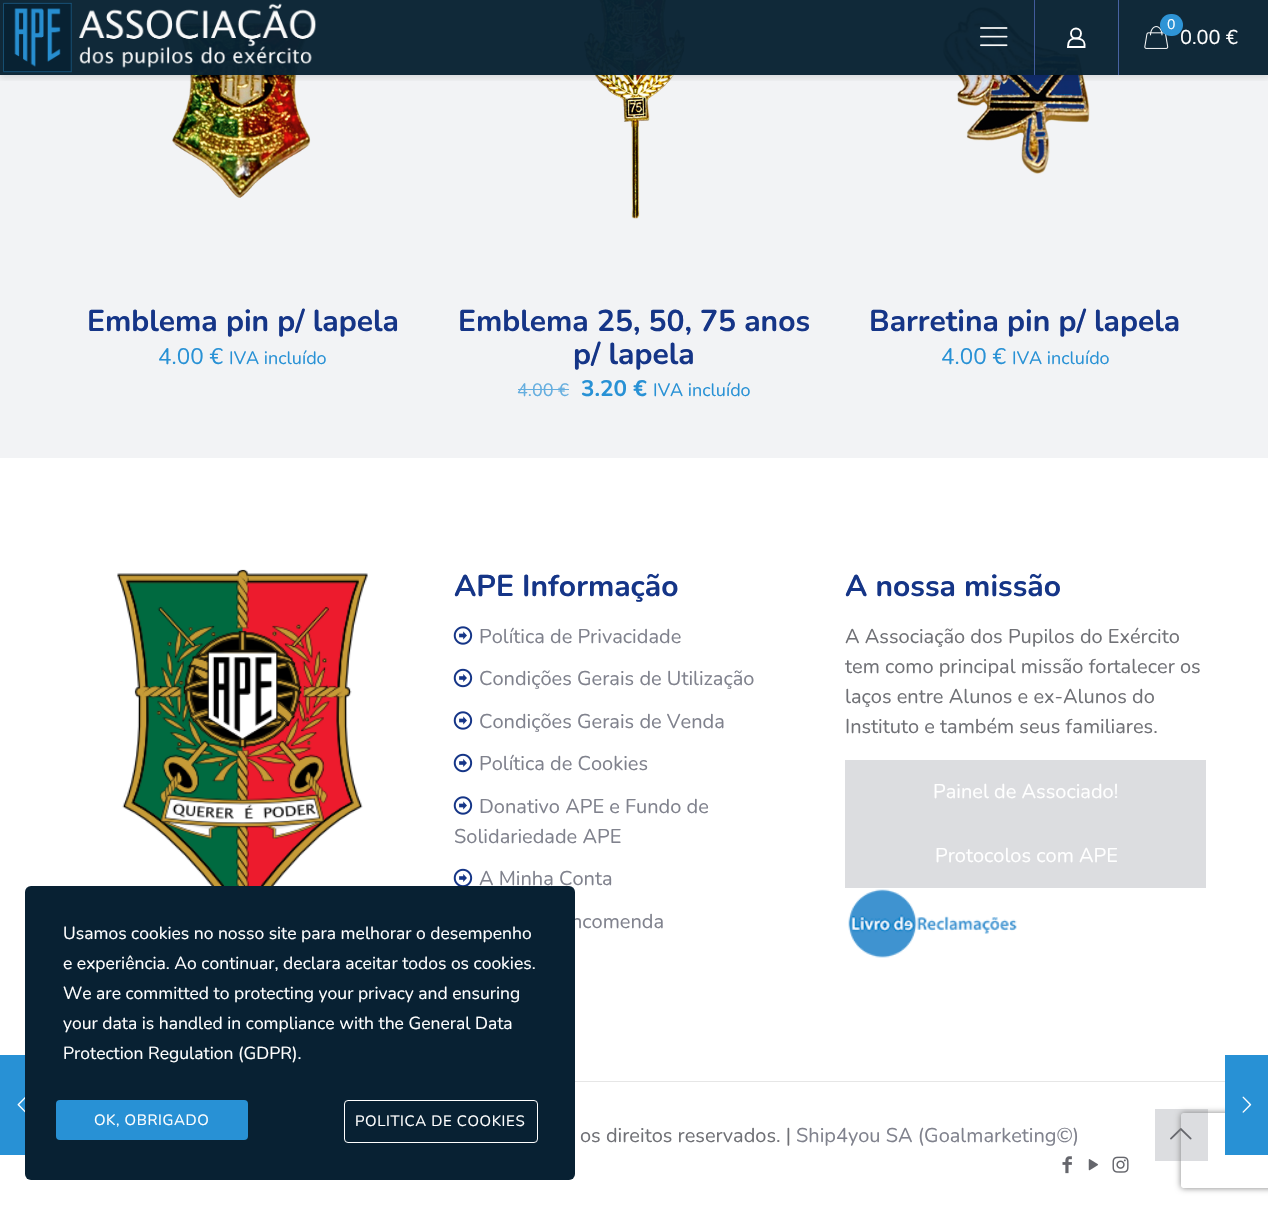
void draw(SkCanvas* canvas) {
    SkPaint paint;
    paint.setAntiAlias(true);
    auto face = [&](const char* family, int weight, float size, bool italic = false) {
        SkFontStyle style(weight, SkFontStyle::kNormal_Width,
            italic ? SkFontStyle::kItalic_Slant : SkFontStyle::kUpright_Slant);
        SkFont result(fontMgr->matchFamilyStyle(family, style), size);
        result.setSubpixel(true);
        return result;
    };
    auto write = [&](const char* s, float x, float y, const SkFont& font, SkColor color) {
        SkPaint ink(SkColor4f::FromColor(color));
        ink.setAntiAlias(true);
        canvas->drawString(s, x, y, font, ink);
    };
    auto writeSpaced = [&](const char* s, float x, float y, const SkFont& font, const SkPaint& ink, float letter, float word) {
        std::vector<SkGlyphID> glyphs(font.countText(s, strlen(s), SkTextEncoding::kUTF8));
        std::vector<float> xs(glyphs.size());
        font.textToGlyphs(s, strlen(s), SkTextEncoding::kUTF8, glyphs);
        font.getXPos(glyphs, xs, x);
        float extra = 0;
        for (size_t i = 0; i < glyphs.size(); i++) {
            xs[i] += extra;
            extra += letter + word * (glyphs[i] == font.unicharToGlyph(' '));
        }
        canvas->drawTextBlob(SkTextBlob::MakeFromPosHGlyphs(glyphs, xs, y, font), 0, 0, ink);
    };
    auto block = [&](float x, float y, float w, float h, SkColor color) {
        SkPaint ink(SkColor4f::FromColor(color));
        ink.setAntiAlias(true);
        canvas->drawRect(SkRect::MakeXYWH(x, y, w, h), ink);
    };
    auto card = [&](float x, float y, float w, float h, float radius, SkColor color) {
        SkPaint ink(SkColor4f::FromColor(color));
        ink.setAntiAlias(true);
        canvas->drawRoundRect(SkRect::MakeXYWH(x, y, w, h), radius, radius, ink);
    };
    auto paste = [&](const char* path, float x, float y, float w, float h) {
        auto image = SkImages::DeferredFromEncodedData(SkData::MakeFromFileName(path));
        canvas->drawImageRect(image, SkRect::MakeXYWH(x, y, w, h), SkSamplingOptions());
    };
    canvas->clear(SkColorSetRGB(242, 243, 245));
    paste("pic4.png", 172, 22, 139, 176);
    paste("pic5.png", 583, 0, 103, 219);
    paste("pic6.png", 942, 6, 148, 168);
    canvas->save();
    canvas->clipRect(SkRect::MakeXYWH(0, 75, 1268, 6));
    paint.setColor(SkColorSetARGB(26, 0, 0, 0));
    paint.setMaskFilter(SkMaskFilter::MakeBlur(kNormal_SkBlurStyle, 3));
    canvas->drawRect(SkRect::MakeXYWH(0, 3, 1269, 75), paint);
    paint.setMaskFilter(nullptr);
    canvas->restore();
    block(0, 0, 1268, 75, SkColorSetARGB(247, 8, 34, 51));
    paste("pic1.png", 3, 2, 313, 71);
    paste("pic2.png", 980, 27, 28, 20);
    block(1034, 0, 1, 75, SkColorSetARGB(247, 67, 93, 159));
    paint.setStyle(SkPaint::kStroke_Style);
    paint.setStrokeWidth(1.9f);
    paint.setColor(SK_ColorWHITE);
    canvas->drawCircle(1076, 33.5f, 5, paint);
    canvas->drawPath(SkPathBuilder().moveTo(1084.5f, 44).lineTo(1084.5f, 47).lineTo(1068, 47).lineTo(1068.5f, 43).cubicTo(1070, 36.5f, 1084.5f, 37, 1084.5f, 44).close().detach(), paint);
    block(1118, 0, 1, 75, SkColorSetRGB(72, 98, 162));
    paste("pic3.png", 1144, 26, 25, 23);
    auto kFont1 = face("Nunito", 400, 20);
    write("0.00 €", 1180, 44, kFont1, SK_ColorWHITE);
    card(1160, 14, 23, 22, 11, SkColorSetRGB(46, 148, 214));
    auto kFont2 = face("Nunito", 400, 14);
    write("0", 1167, 29, kFont2, SK_ColorWHITE);
    auto kFont3 = face("Nunito", 700, 30);
    write("Emblema pin p/ lapela", 87, 331, kFont3, SkColorSetRGB(21, 53, 135));
    auto kFont4 = face("Nunito", 400, 22.5f);
    write("4.00 €", 158, 364, kFont4, SkColorSetRGB(40, 145, 213));
    auto kFont5 = face("Nunito", 400, 18);
    write("IVA incluído", 229, 364, kFont5, SkColorSetRGB(40, 145, 213));
    write("Emblema 25, 50, 75 anos", 458, 331, kFont3, SkColorSetRGB(21, 53, 135));
    write("p/ lapela", 573, 364, kFont3, SkColorSetRGB(21, 53, 135));
    write("4.00", 517, 396, kFont5, SkColorSetRGB(101, 174, 223));
    block(518, 389, 41, 1, SkColorSetRGB(101, 174, 223));
    write("€", 558, 396, kFont5, SkColorSetRGB(101, 174, 223));
    block(559, 389, 10, 1, SkColorSetRGB(101, 174, 223));
    auto kFont6 = face("Nunito", 700, 22.5f);
    write("3.20 €", 581, 396, kFont6, SkColorSetRGB(40, 145, 213));
    write("IVA incluído", 653, 396, kFont5, SkColorSetRGB(40, 145, 213));
    write("Barretina pin p/ lapela", 869, 331, kFont3, SkColorSetRGB(21, 53, 135));
    write("4.00 €", 941, 364, kFont4, SkColorSetRGB(40, 145, 213));
    write("IVA incluído", 1012, 364, kFont5, SkColorSetRGB(40, 145, 213));
    block(0, 458, 1268, 747, SK_ColorWHITE);
    paste("pic7.png", 117, 569, 251, 317);
    write("APE Informação", 454, 596, kFont3, SkColorSetRGB(21, 53, 135));
    paste("pic8.png", 453, 626, 20, 19);
    write("Política de Privacidade", 479, 643, kFont1, SkColorSetRGB(128, 130, 141));
    paste("pic9.png", 453, 668, 20, 20);
    write("Condições Gerais de Utilização", 479, 685, kFont1, SkColorSetRGB(128, 130, 141));
    paste("pic8.png", 453, 711, 20, 19);
    write("Condições Gerais de Venda", 479, 728, kFont1, SkColorSetRGB(128, 130, 141));
    paste("pic9.png", 453, 753, 20, 20);
    write("Política de Cookies", 479, 770, kFont1, SkColorSetRGB(128, 130, 141));
    paste("pic8.png", 453, 796, 20, 19);
    write("Donativo APE e Fundo de", 479, 813, kFont1, SkColorSetRGB(128, 130, 141));
    write("Solidariedade APE", 454, 843, kFont1, SkColorSetRGB(128, 130, 141));
    paste("pic10.png", 453, 868, 20, 18);
    write("A Minha Conta", 479, 885, kFont1, SkColorSetRGB(128, 130, 141));
    write("ncomenda", 571, 928, kFont1, SkColorSetRGB(128, 130, 141));
    write("A nossa missão", 845, 596, kFont3, SkColorSetRGB(21, 53, 135));
    write("A Associação dos Pupilos do Exército", 845, 643, kFont1, SkColorSetRGB(112, 113, 118));
    write("tem como principal missão fortalecer os", 845, 673, kFont1, SkColorSetRGB(112, 113, 118));
    write("laços entre Alunos e ex-Alunos do", 845, 703, kFont1, SkColorSetRGB(112, 113, 118));
    write("Instituto e também seus familiares.", 845, 733, kFont1, SkColorSetRGB(112, 113, 118));
    block(845, 760, 361, 128, SkColorSetRGB(220, 221, 224));
    write("Painel de Associado!", 933, 798, kFont1, SK_ColorWHITE);
    write("Protocolos com APE", 935, 862, kFont1, SK_ColorWHITE);
    paste("pic11.png", 848, 889, 169, 69);
    block(575, 1081, 650, 1, SkColorSetRGB(230, 230, 230));
    write("os direitos reservados. |", 580, 1142, kFont1, SkColorSetRGB(112, 113, 118));
    write("Ship4you SA (Goalmarketing©)", 796, 1142, kFont1, SkColorSetRGB(128, 130, 141));
    block(1155, 1109, 53, 52, SkColorSetRGB(220, 221, 224));
    paste("pic12.png", 1170, 1128, 22, 12);
    paste("pic13.png", 1062, 1156, 10, 18);
    paste("pic14.png", 1088, 1159, 11, 12);
    paste("pic15.png", 1112, 1156, 17, 17);
    block(0, 1055, 25, 100, SkColorSetRGB(40, 145, 213));
    paste("pic16.png", 17, 1097, 8, 16);
    card(25, 886, 550, 294, 6, SkColorSetRGB(8, 33, 51));
    auto kFont7 = face("Nunito", 400, 17.5f);
    write("Usamos cookies no nosso site para melhorar o desempenho", 63, 939, kFont7, SK_ColorWHITE);
    write("e experiência. Ao continuar, declara aceitar todos os cookies.", 63, 969, kFont7, SK_ColorWHITE);
    write("We are committed to protecting your privacy and ensuring", 63, 999, kFont7, SK_ColorWHITE);
    write("your data is handled in compliance with the General Data", 63, 1029, kFont7, SK_ColorWHITE);
    write("Protection Regulation (GDPR).", 63, 1059, kFont7, SK_ColorWHITE);
    card(56, 1100, 192, 40, 4, SkColorSetRGB(40, 145, 213));
    auto kFont8 = face("Nunito", 400, 15);
    paint.setStyle(SkPaint::kFill_Style);
    writeSpaced("OK, OBRIGADO", 94, 1125, kFont8, paint, 0.6f, 0);
    paint.setStyle(SkPaint::kStroke_Style);
    paint.setStrokeWidth(1);
    canvas->drawRoundRect(SkRect::MakeXYWH(344.5f, 1100.5f, 193, 42), 3.5f, 3.5f, paint);
    paint.setStyle(SkPaint::kFill_Style);
    writeSpaced("POLITICA DE COOKIES", 355, 1126, kFont8, paint, 0.6f, 0);
    canvas->save();
    canvas->clipPath(SkPathBuilder(SkPathFillType::kEvenOdd).moveTo(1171, 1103).lineTo(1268, 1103).lineTo(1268, 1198).lineTo(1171, 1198).close().moveTo(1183.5f, 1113).lineTo(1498.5f, 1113).cubicTo(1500, 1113, 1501, 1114, 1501, 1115.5f).lineTo(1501, 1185.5f).cubicTo(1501, 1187, 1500, 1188, 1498.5f, 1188).lineTo(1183.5f, 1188).cubicTo(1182, 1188, 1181, 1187, 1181, 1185.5f).lineTo(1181, 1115.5f).cubicTo(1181, 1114, 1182, 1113, 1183.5f, 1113).close().detach(), true);
    paint.setColor(SkColorSetRGB(128, 128, 128));
    paint.setMaskFilter(SkMaskFilter::MakeBlur(kNormal_SkBlurStyle, 3));
    canvas->drawRoundRect(SkRect::MakeXYWH(1181, 1113, 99, 75), 2.5f, 2.5f, paint);
    paint.setMaskFilter(nullptr);
    canvas->restore();
    block(1225, 1055, 43, 100, SkColorSetRGB(40, 145, 213));
    paste("pic17.png", 1242, 1096, 10, 17);
}
